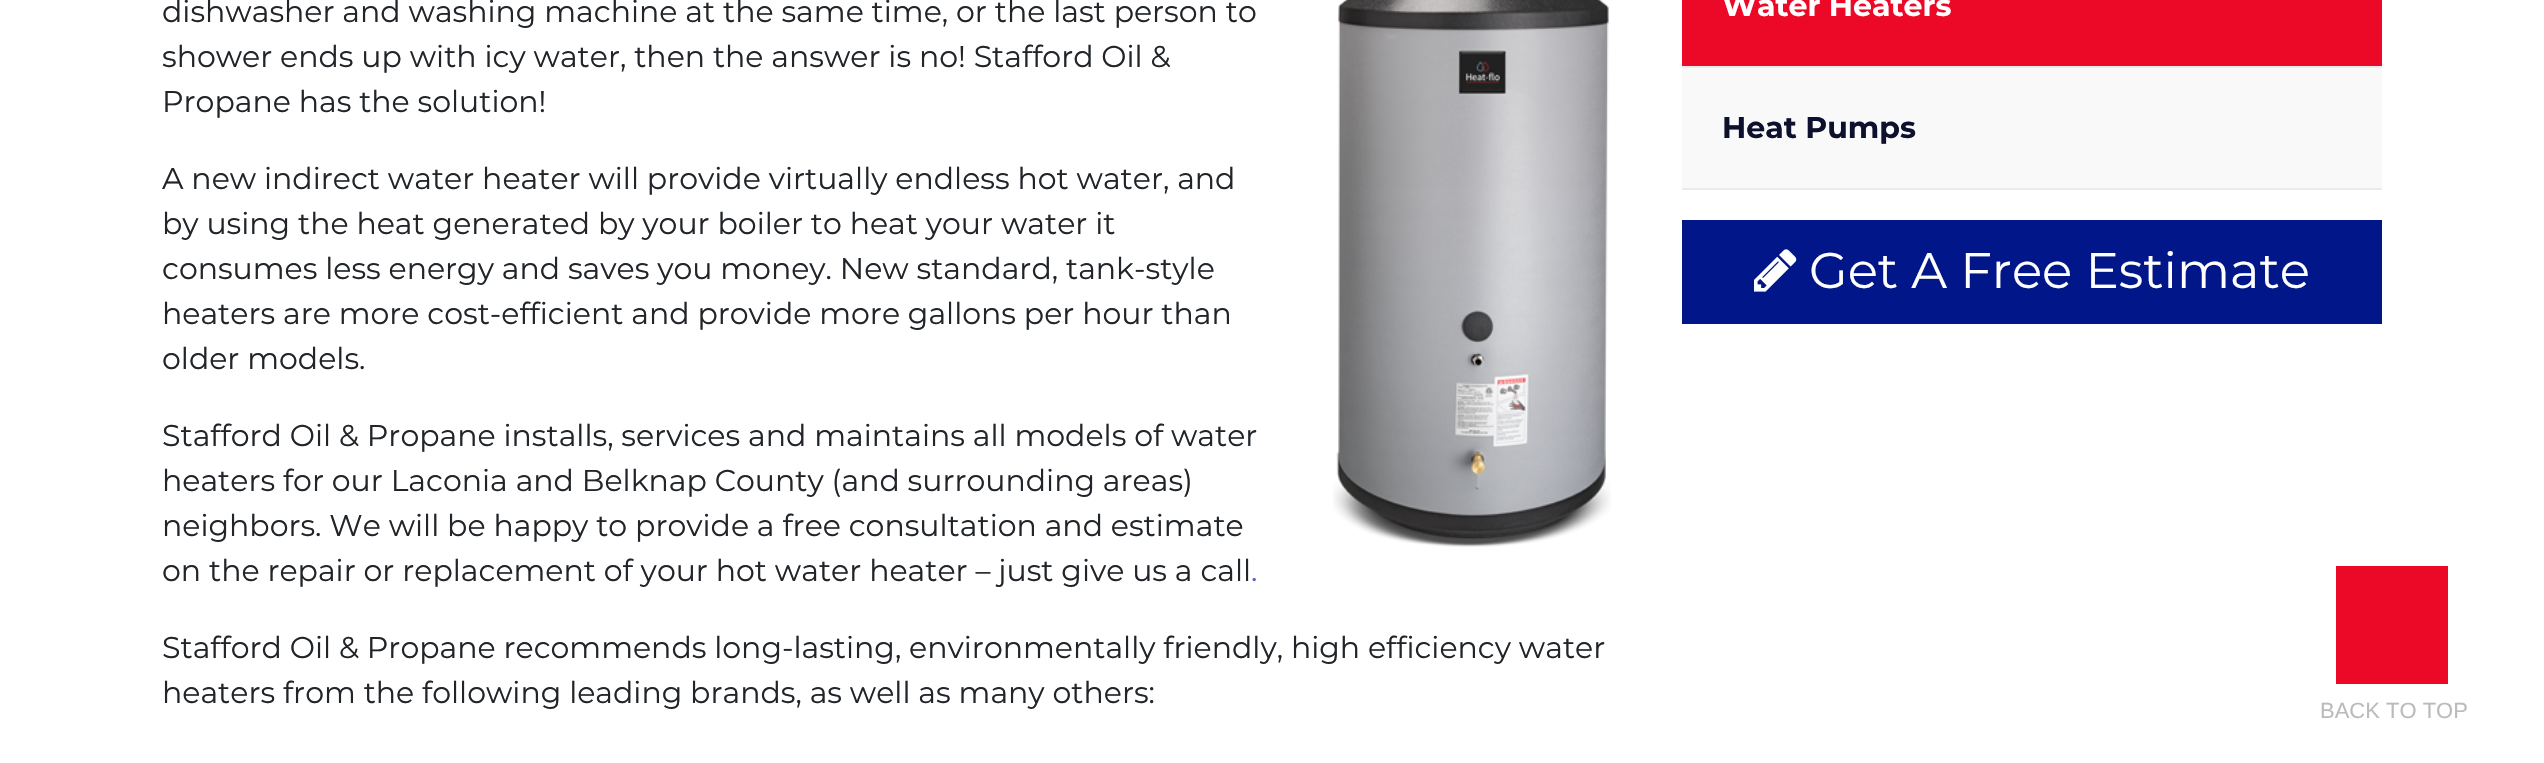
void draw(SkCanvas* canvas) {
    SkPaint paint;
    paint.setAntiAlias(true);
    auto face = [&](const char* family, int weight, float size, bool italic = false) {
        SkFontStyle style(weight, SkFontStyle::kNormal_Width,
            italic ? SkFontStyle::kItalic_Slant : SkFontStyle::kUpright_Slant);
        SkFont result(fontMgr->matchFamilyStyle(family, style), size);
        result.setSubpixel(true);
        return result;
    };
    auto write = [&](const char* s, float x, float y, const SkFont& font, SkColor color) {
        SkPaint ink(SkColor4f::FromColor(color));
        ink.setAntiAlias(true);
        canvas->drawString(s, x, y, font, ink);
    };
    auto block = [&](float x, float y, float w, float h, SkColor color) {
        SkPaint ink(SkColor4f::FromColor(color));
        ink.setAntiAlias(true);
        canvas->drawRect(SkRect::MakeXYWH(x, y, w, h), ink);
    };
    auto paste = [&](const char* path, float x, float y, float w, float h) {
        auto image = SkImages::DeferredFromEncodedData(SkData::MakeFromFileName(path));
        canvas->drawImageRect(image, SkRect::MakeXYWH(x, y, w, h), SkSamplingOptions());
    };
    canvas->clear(SK_ColorWHITE);
    auto kFont1 = face("Montserrat", 400, 30);
    write("dishwasher and washing machine at the same time, or the last person to", 162, 22, kFont1, SkColorSetRGB(33, 37, 41));
    paste("pic1.png", 1333, 0, 278, 547);
    write("shower ends up with icy water, then the answer is no! Stafford Oil &", 162, 67, kFont1, SkColorSetRGB(33, 37, 41));
    write("Propane has the solution!", 162, 112, kFont1, SkColorSetRGB(33, 37, 41));
    write("A new indirect water heater will provide virtually endless hot water, and", 162, 189, kFont1, SkColorSetRGB(33, 37, 41));
    write("by using the heat generated by your boiler to heat your water it", 162, 234, kFont1, SkColorSetRGB(33, 37, 41));
    write("consumes less energy and saves you money. New standard, tank-style", 162, 279, kFont1, SkColorSetRGB(33, 37, 41));
    write("heaters are more cost-efficient and provide more gallons per hour than", 162, 324, kFont1, SkColorSetRGB(33, 37, 41));
    write("older models.", 162, 369, kFont1, SkColorSetRGB(33, 37, 41));
    write("Stafford Oil & Propane installs, services and maintains all models of water", 162, 446, kFont1, SkColorSetRGB(33, 37, 41));
    write("heaters for our Laconia and Belknap County (and surrounding areas)", 162, 491, kFont1, SkColorSetRGB(33, 37, 41));
    write("neighbors. We will be happy to provide a free consultation and estimate", 162, 536, kFont1, SkColorSetRGB(33, 37, 41));
    write("on the repair or replacement of your hot water heater – just give us a call", 162, 581, kFont1, SkColorSetRGB(33, 37, 41));
    write(".", 1251, 581, kFont1, SkColorSetRGB(84, 97, 196));
    write("Stafford Oil & Propane recommends long-lasting, environmentally friendly, high efficiency water", 162, 658, kFont1, SkColorSetRGB(33, 37, 41));
    write("heaters from the following leading brands, as well as many others:", 162, 703, kFont1, SkColorSetRGB(33, 37, 41));
    block(1682, 68, 700, 120, SkColorSetRGB(249, 249, 249));
    block(1682, 0, 700, 66, SkColorSetRGB(236, 9, 40));
    block(1682, 66, 700, 2, SkColorSetRGB(235, 235, 235));
    auto kFont2 = face("Montserrat", 700, 30);
    write("Water Heaters", 1722, 16, kFont2, SK_ColorWHITE);
    block(1682, 188, 700, 2, SkColorSetRGB(235, 235, 235));
    write("Heat Pumps", 1722, 138, kFont2, SkColorSetRGB(13, 17, 45));
    block(1682, 220, 700, 104, SkColorSetRGB(1, 22, 137));
    paste("pic2.png", 1754, 249, 43, 43);
    auto kFont3 = face("Montserrat", 400, 50);
    write("Get A Free Estimate", 1809, 288, kFont3, SK_ColorWHITE);
    block(2336, 566, 112, 118, SkColorSetRGB(236, 9, 40));
    auto kFont4 = face("Liberation Sans", 400, 22);
    write("BACK TO TOP", 2320, 718, kFont4, SkColorSetRGB(187, 187, 187));
}
